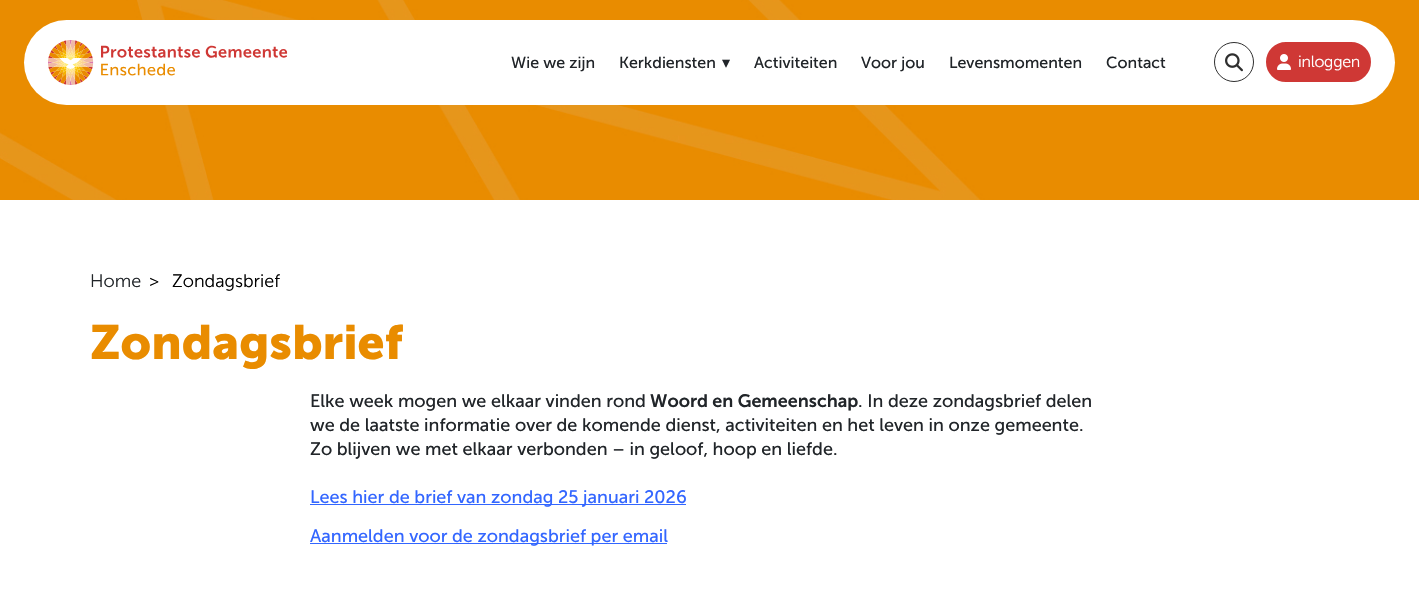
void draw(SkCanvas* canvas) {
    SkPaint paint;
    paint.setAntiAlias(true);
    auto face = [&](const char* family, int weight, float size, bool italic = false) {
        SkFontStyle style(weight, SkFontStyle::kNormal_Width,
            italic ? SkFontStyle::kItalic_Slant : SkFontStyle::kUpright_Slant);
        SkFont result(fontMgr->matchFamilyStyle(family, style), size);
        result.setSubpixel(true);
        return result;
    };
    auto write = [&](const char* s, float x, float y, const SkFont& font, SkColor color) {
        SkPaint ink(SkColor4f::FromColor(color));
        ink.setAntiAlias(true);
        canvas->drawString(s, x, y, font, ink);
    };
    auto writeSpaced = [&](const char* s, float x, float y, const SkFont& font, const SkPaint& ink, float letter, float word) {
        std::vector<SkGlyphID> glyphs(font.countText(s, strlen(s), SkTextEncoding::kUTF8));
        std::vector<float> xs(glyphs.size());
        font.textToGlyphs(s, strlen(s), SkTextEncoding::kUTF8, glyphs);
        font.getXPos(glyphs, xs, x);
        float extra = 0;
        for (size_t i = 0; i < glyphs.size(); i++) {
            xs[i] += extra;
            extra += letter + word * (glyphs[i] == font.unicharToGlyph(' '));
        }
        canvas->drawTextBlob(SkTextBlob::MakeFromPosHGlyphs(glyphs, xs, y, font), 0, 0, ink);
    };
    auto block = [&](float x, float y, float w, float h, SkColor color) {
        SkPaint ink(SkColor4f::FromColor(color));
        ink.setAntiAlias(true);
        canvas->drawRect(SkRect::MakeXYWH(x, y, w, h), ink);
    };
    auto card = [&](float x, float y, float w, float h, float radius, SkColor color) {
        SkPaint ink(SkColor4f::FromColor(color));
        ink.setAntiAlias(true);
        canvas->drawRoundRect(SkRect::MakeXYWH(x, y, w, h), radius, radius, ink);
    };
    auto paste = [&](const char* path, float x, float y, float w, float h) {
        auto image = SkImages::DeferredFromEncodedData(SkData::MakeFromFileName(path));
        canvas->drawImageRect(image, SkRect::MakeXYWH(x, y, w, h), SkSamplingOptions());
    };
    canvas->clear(SK_ColorWHITE);
    paste("pic4.png", 0, 0, 1419, 200);
    card(24, 20, 1371, 85, 42.5f, SK_ColorWHITE);
    paste("pic1.png", 48, 40, 240, 45);
    auto kFont1 = face("Museo Sans", 400, 16);
    write("Wie we zijn", 511, 68, kFont1, SkColorSetRGB(33, 37, 41));
    write("Kerkdiensten", 619, 68, kFont1, SkColorSetRGB(33, 37, 41));
    auto kFont2 = face("DejaVu Sans", 400, 16);
    write("▾", 722, 68, kFont2, SkColorSetRGB(33, 37, 41));
    write("Activiteiten", 754, 68, kFont1, SkColorSetRGB(33, 37, 41));
    write("Voor jou", 861, 68, kFont1, SkColorSetRGB(33, 37, 41));
    write("Levensmomenten", 949, 68, kFont1, SkColorSetRGB(33, 37, 41));
    write("Contact", 1106, 68, kFont1, SkColorSetRGB(33, 37, 41));
    paint.setStyle(SkPaint::kStroke_Style);
    paint.setStrokeWidth(1);
    paint.setColor(SkColorSetRGB(46, 46, 46));
    canvas->drawCircle(1234, 62, 19.5f, paint);
    paste("pic2.png", 1225, 53, 18, 19);
    paint.setStyle(SkPaint::kFill_Style);
    paint.setColor(SkColorSetRGB(207, 56, 53));
    canvas->drawRoundRect(SkRect::MakeXYWH(1267, 43, 103, 38), 19, 19, paint);
    paint.setStyle(SkPaint::kStroke_Style);
    paint.setStrokeWidth(2);
    canvas->drawRoundRect(SkRect::MakeXYWH(1267, 43, 103, 38), 19, 19, paint);
    paste("pic3.png", 1277, 54, 14, 16);
    auto kFont3 = face("Museo Sans", 300, 16);
    paint.setStyle(SkPaint::kFill_Style);
    paint.setColor(SK_ColorWHITE);
    writeSpaced("inloggen", 1298, 67, kFont3, paint, -0.25f, 0);
    auto kFont4 = face("Museo Sans", 300, 18);
    write("Home", 90, 287, kFont4, SkColorSetRGB(33, 37, 41));
    write(">", 149, 287, kFont4, SK_ColorBLACK);
    write("Zondagsbrief", 172, 287, kFont4, SK_ColorBLACK);
    auto kFont5 = face("Museo Sans", 700, 48);
    write("Zondagsbrief", 90, 359, kFont5, SkColorSetRGB(233, 140, 0));
    auto kFont6 = face("Museo Sans", 400, 18);
    write("Elke week mogen we elkaar vinden rond", 310, 407, kFont6, SkColorSetRGB(33, 37, 41));
    auto kFont7 = face("Museo Sans", 600, 18);
    write("Woord en Gemeenschap", 650, 407, kFont7, SkColorSetRGB(33, 37, 41));
    write(". In deze zondagsbrief delen", 858, 407, kFont6, SkColorSetRGB(33, 37, 41));
    write("we de laatste informatie over de komende dienst, activiteiten en het leven in onze gemeente.", 310, 431, kFont6, SkColorSetRGB(33, 37, 41));
    write("Zo blijven we met elkaar verbonden – in geloof, hoop en liefde.", 310, 455, kFont6, SkColorSetRGB(33, 37, 41));
    block(310, 504, 376, 1, SkColorSetRGB(51, 102, 255));
    write("Lees hier de brief van zondag 25 januari 2026", 310, 503, kFont6, SkColorSetRGB(51, 102, 255));
    block(310, 543, 357, 1, SkColorSetRGB(51, 102, 255));
    write("Aanmelden voor de zondagsbrief per email", 310, 542, kFont6, SkColorSetRGB(51, 102, 255));
}
